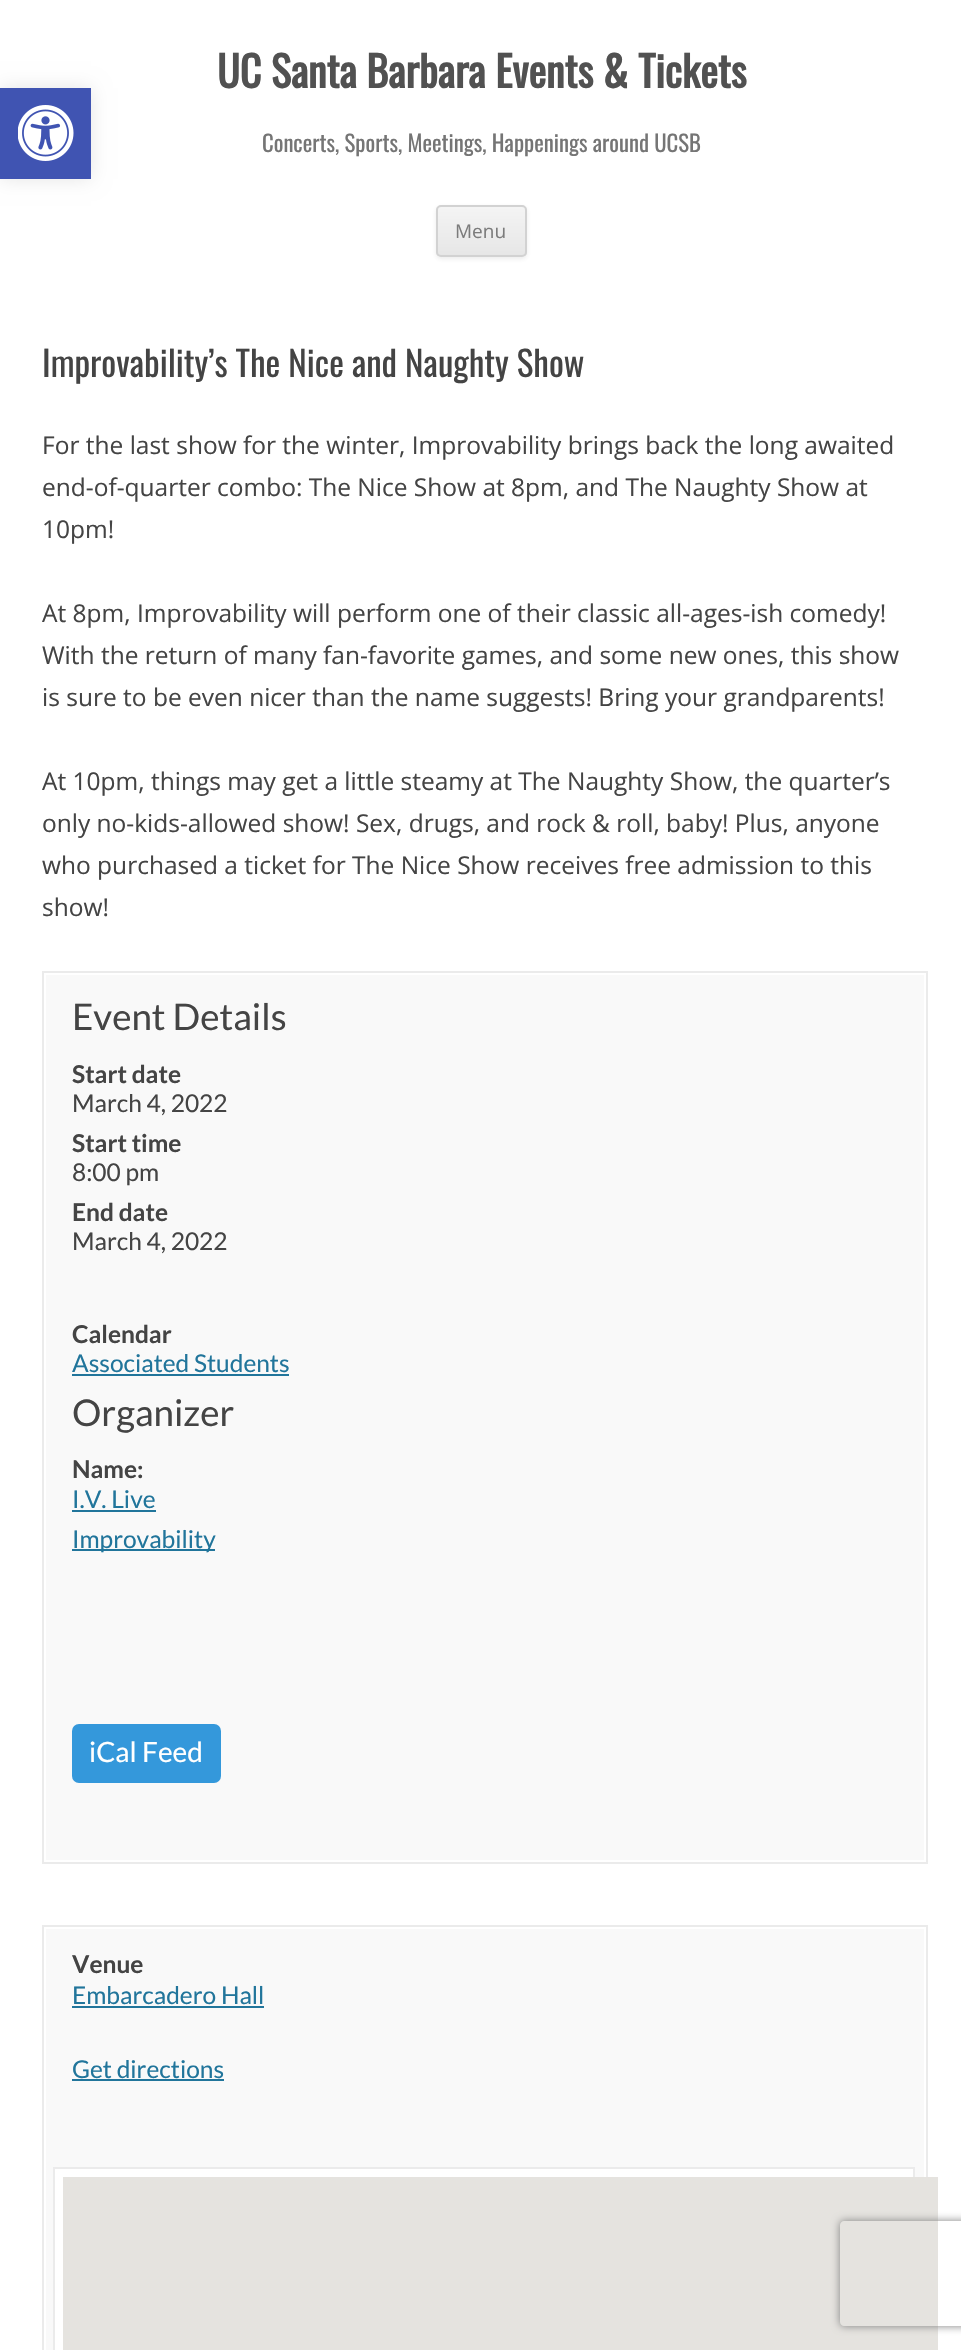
void draw(SkCanvas* canvas) {
    SkPaint paint;
    paint.setAntiAlias(true);
    auto face = [&](const char* family, int weight, float size, bool italic = false) {
        SkFontStyle style(weight, SkFontStyle::kNormal_Width,
            italic ? SkFontStyle::kItalic_Slant : SkFontStyle::kUpright_Slant);
        SkFont result(fontMgr->matchFamilyStyle(family, style), size);
        result.setSubpixel(true);
        return result;
    };
    auto write = [&](const char* s, float x, float y, const SkFont& font, SkColor color) {
        SkPaint ink(SkColor4f::FromColor(color));
        ink.setAntiAlias(true);
        canvas->drawString(s, x, y, font, ink);
    };
    auto block = [&](float x, float y, float w, float h, SkColor color) {
        SkPaint ink(SkColor4f::FromColor(color));
        ink.setAntiAlias(true);
        canvas->drawRect(SkRect::MakeXYWH(x, y, w, h), ink);
    };
    auto card = [&](float x, float y, float w, float h, float radius, SkColor color) {
        SkPaint ink(SkColor4f::FromColor(color));
        ink.setAntiAlias(true);
        canvas->drawRoundRect(SkRect::MakeXYWH(x, y, w, h), radius, radius, ink);
    };
    auto paste = [&](const char* path, float x, float y, float w, float h) {
        auto image = SkImages::DeferredFromEncodedData(SkData::MakeFromFileName(path));
        canvas->drawImageRect(image, SkRect::MakeXYWH(x, y, w, h), SkSamplingOptions());
    };
    canvas->clear(SK_ColorWHITE);
    auto kFont1 = face("Oswald", 700, 42);
    write("UC Santa Barbara Events & Tickets", 217, 88, kFont1, SkColorSetRGB(81, 81, 81));
    auto kFont2 = face("Oswald", 400, 22.75f);
    write("Concerts, Sports, Meetings, Happenings around UCSB", 262, 152, kFont2, SkColorSetRGB(117, 117, 117));
    paint.setColor(SkColorSetARGB(26, 64, 64, 64));
    paint.setMaskFilter(SkMaskFilter::MakeBlur(kNormal_SkBlurStyle, 2));
    canvas->drawRoundRect(SkRect::MakeXYWH(436, 207, 91, 52), 5, 5, paint);
    paint.setMaskFilter(nullptr);
    canvas->save();
    canvas->clipPath(SkPathBuilder().moveTo(441, 205).lineTo(522, 205).cubicTo(525, 205, 527, 207, 527, 210).lineTo(527, 252).cubicTo(527, 255, 525, 257, 522, 257).lineTo(441, 257).cubicTo(438, 257, 436, 255, 436, 252).lineTo(436, 210).cubicTo(436, 207, 438, 205, 441, 205).close().detach(), true);
    {
        const SkColor colors[] = {SkColorSetRGB(244, 244, 244), SkColorSetRGB(230, 230, 230)};
        const float stops[] = {0, 1};
        const SkPoint ends[] = {{481, 207}, {481, 256}};
        paint.setShader(SkGradientShader::MakeLinear(ends, colors, stops, 2, SkTileMode::kClamp));
        paint.setAlpha(255);
    }
    canvas->drawRect(SkRect::MakeXYWH(436, 207, 91, 49), paint);
    canvas->restore();
    paint.setStyle(SkPaint::kStroke_Style);
    paint.setStrokeWidth(2);
    paint.setShader(nullptr);
    paint.setColor(SkColorSetRGB(210, 210, 210));
    canvas->drawRoundRect(SkRect::MakeXYWH(437, 206, 89, 50), 4, 4, paint);
    auto kFont3 = face("Open Sans", 400, 19);
    write("Menu", 455, 238, kFont3, SkColorSetRGB(124, 124, 124));
    auto kFont4 = face("Oswald", 400, 35);
    write("Improvability’s The Nice and Naughty Show", 42, 377, kFont4, SkColorSetRGB(68, 68, 68));
    auto kFont5 = face("Open Sans", 400, 24.5f);
    write("For the last show for the winter, Improvability brings back the long awaited", 42, 454, kFont5, SkColorSetRGB(68, 68, 68));
    write("end-of-quarter combo: The Nice Show at 8pm, and The Naughty Show at", 42, 496, kFont5, SkColorSetRGB(68, 68, 68));
    write("10pm!", 42, 538, kFont5, SkColorSetRGB(68, 68, 68));
    write("At 8pm, Improvability will perform one of their classic all-ages-ish comedy!", 42, 622, kFont5, SkColorSetRGB(68, 68, 68));
    write("With the return of many fan-favorite games, and some new ones, this show", 42, 664, kFont5, SkColorSetRGB(68, 68, 68));
    write("is sure to be even nicer than the name suggests! Bring your grandparents!", 42, 706, kFont5, SkColorSetRGB(68, 68, 68));
    write("At 10pm, things may get a little steamy at The Naughty Show, the quarter’s", 42, 790, kFont5, SkColorSetRGB(68, 68, 68));
    write("only no-kids-allowed show! Sex, drugs, and rock & roll, baby! Plus, anyone", 42, 832, kFont5, SkColorSetRGB(68, 68, 68));
    write("who purchased a ticket for The Nice Show receives free admission to this", 42, 874, kFont5, SkColorSetRGB(68, 68, 68));
    write("show!", 42, 916, kFont5, SkColorSetRGB(68, 68, 68));
    paint.setColor(SkColorSetRGB(235, 235, 235));
    canvas->drawRect(SkRect::MakeXYWH(43, 972, 884, 891), paint);
    block(46, 975, 878, 885, SkColorSetRGB(249, 249, 249));
    auto kFont6 = face("Lato", 400, 36.75f);
    write("Event Details", 72, 1030, kFont6, SkColorSetRGB(68, 68, 68));
    auto kFont7 = face("Lato", 700, 24.5f);
    write("Start date", 72, 1083, kFont7, SkColorSetRGB(68, 68, 68));
    auto kFont8 = face("Lato", 400, 24.5f);
    write("March 4, 2022", 72, 1112, kFont8, SkColorSetRGB(68, 68, 68));
    write("Start time", 72, 1152, kFont7, SkColorSetRGB(68, 68, 68));
    write("8:00 pm", 72, 1181, kFont8, SkColorSetRGB(68, 68, 68));
    write("End date", 72, 1221, kFont7, SkColorSetRGB(68, 68, 68));
    write("March 4, 2022", 72, 1250, kFont8, SkColorSetRGB(68, 68, 68));
    write("Calendar", 72, 1343, kFont7, SkColorSetRGB(68, 68, 68));
    write("Associated Students", 72, 1372, kFont8, SkColorSetRGB(33, 117, 155));
    block(72, 1374, 217, 2, SkColorSetRGB(33, 117, 155));
    write("Organizer", 72, 1426, kFont6, SkColorSetRGB(68, 68, 68));
    write("Name:", 72, 1478, kFont7, SkColorSetRGB(68, 68, 68));
    write("I.V. Live", 72, 1508, kFont8, SkColorSetRGB(33, 117, 155));
    block(72, 1510, 84, 2, SkColorSetRGB(33, 117, 155));
    block(72, 1549, 143, 2, SkColorSetRGB(33, 117, 155));
    write("Improvability", 72, 1548, kFont8, SkColorSetRGB(33, 117, 155));
    card(72, 1724, 149, 59, 7, SkColorSetRGB(52, 152, 219));
    auto kFont9 = face("Lato", 400, 28);
    write("iCal Feed", 89, 1762, kFont9, SK_ColorWHITE);
    canvas->drawRect(SkRect::MakeXYWH(43, 1926, 884, 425), paint);
    block(46, 1929, 878, 421, SkColorSetRGB(249, 249, 249));
    write("Venue", 72, 1973, kFont7, SkColorSetRGB(68, 68, 68));
    write("Embarcadero Hall", 72, 2004, kFont8, SkColorSetRGB(33, 117, 155));
    block(72, 2006, 192, 2, SkColorSetRGB(33, 117, 155));
    write("Get directions", 72, 2078, kFont8, SkColorSetRGB(33, 117, 155));
    block(72, 2079, 152, 2, SkColorSetRGB(33, 117, 155));
    paint.setStyle(SkPaint::kFill_Style);
    paint.setColor(SK_ColorWHITE);
    canvas->drawRect(SkRect::MakeXYWH(54, 2168, 860, 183), paint);
    paint.setStyle(SkPaint::kStroke_Style);
    paint.setColor(SkColorSetRGB(235, 235, 235));
    canvas->drawRect(SkRect::MakeXYWH(54, 2168, 860, 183), paint);
    block(63, 2177, 875, 173, SkColorSetRGB(229, 227, 223));
    paint.setStyle(SkPaint::kFill_Style);
    paint.setColor(SkColorSetARGB(26, 0, 0, 0));
    paint.setMaskFilter(SkMaskFilter::MakeBlur(kNormal_SkBlurStyle, 9));
    canvas->drawRect(SkRect::MakeXYWH(0, 88, 91, 91), paint);
    paint.setMaskFilter(nullptr);
    block(0, 88, 91, 91, SkColorSetRGB(64, 84, 178));
    paste("pic1.png", 18, 105, 56, 56);
    canvas->save();
    canvas->clipPath(SkPathBuilder(SkPathFillType::kEvenOdd).moveTo(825, 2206).lineTo(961, 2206).lineTo(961, 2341).lineTo(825, 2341).close().moveTo(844, 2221).lineTo(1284, 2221).cubicTo(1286, 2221, 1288, 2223, 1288, 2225).lineTo(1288, 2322).cubicTo(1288, 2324, 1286, 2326, 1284, 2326).lineTo(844, 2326).cubicTo(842, 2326, 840, 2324, 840, 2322).lineTo(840, 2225).cubicTo(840, 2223, 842, 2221, 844, 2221).close().detach(), true);
    paint.setColor(SkColorSetRGB(128, 128, 128));
    paint.setMaskFilter(SkMaskFilter::MakeBlur(kNormal_SkBlurStyle, 4.5f));
    canvas->drawRoundRect(SkRect::MakeXYWH(840, 2221, 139, 105), 4, 4, paint);
    paint.setMaskFilter(nullptr);
    canvas->restore();
}
